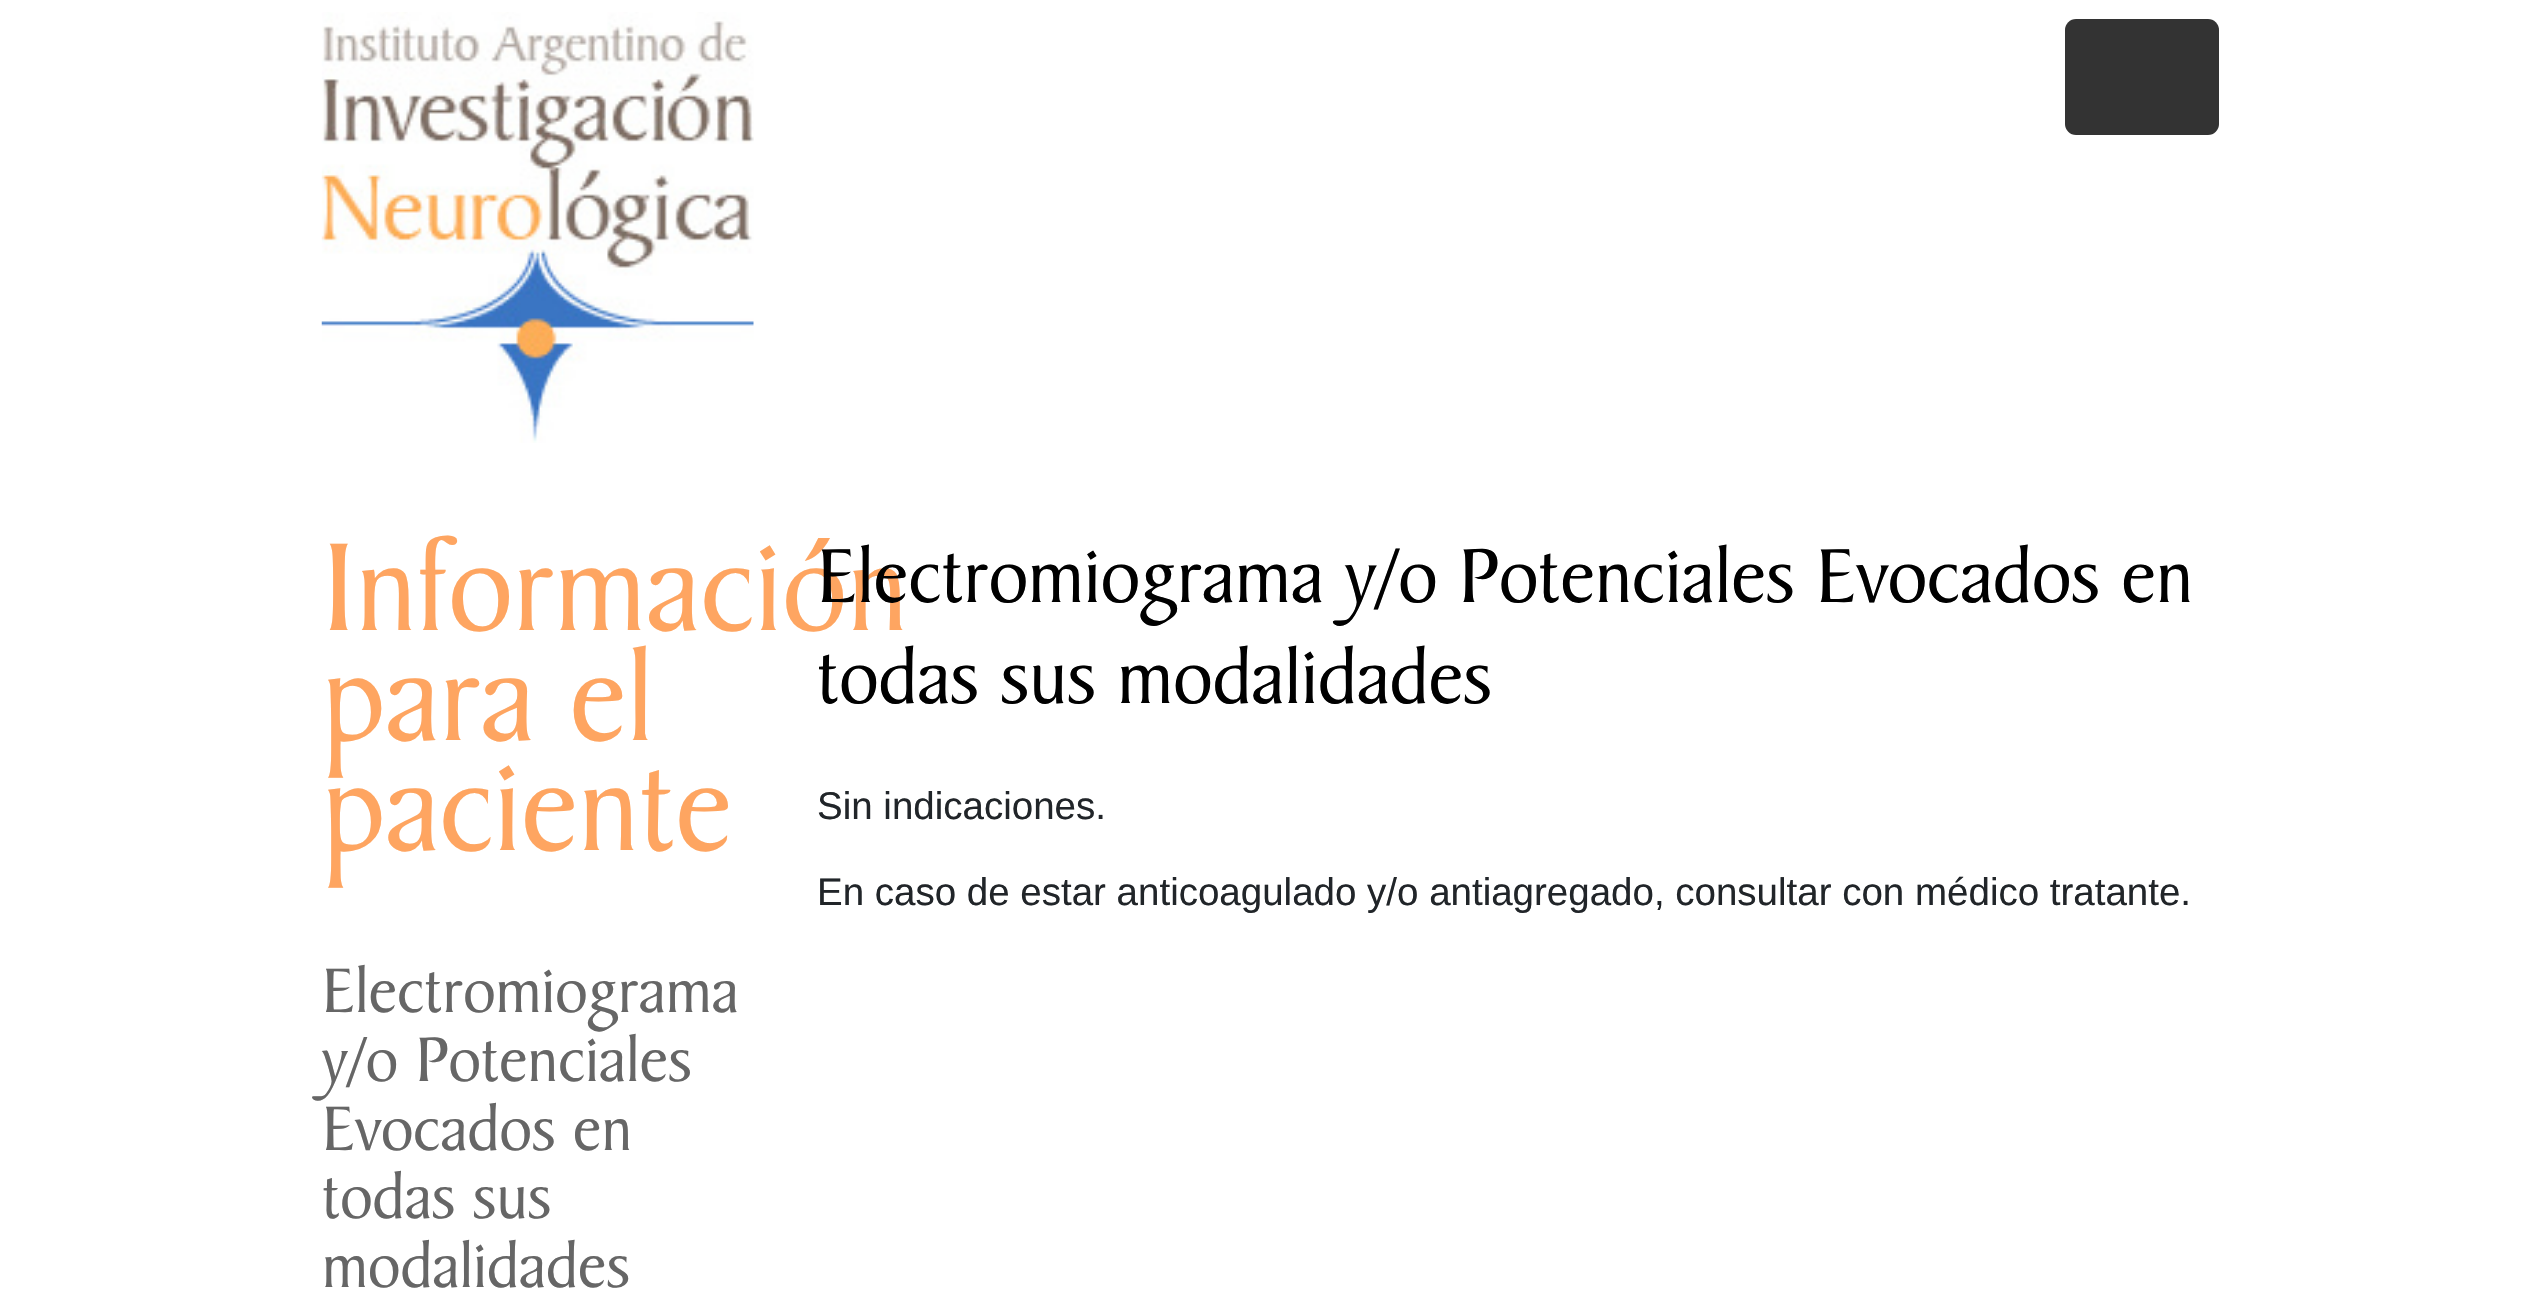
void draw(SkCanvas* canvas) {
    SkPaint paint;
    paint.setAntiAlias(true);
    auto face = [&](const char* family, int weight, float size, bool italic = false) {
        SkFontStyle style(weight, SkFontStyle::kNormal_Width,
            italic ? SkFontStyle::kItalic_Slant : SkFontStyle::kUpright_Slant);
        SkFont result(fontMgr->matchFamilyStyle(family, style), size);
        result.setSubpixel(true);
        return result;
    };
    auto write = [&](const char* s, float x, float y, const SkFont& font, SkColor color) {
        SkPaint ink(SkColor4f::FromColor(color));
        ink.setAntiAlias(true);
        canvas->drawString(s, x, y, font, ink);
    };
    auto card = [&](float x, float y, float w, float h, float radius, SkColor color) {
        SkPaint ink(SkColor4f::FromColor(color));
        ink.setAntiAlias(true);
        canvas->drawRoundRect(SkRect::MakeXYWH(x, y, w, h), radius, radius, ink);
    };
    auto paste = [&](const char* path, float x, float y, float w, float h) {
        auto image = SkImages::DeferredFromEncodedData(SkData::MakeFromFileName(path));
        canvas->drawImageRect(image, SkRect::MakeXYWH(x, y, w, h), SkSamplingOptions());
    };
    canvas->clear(SK_ColorWHITE);
    paste("pic1.png", 321, 12, 433, 431);
    card(2065, 19, 154, 116, 11, SkColorSetRGB(51, 51, 51));
    auto kFont1 = face("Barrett", 400, 137.5f);
    write("Información", 322, 630, kFont1, SkColorSetRGB(254, 165, 97));
    write("para el", 322, 740, kFont1, SkColorSetRGB(254, 165, 97));
    write("paciente", 322, 850, kFont1, SkColorSetRGB(254, 165, 97));
    auto kFont2 = face("Barrett", 400, 68.75f);
    write("Electromiograma", 322, 1012, kFont2, SkColorSetRGB(102, 102, 102));
    write("y/o Potenciales", 322, 1081, kFont2, SkColorSetRGB(102, 102, 102));
    write("Evocados en", 322, 1150, kFont2, SkColorSetRGB(102, 102, 102));
    write("todas sus", 322, 1218, kFont2, SkColorSetRGB(102, 102, 102));
    write("modalidades", 322, 1287, kFont2, SkColorSetRGB(102, 102, 102));
    auto kFont3 = face("Barrett", 400, 83.6f);
    write("Electromiograma y/o Potenciales Evocados en", 817, 602, kFont3, SK_ColorBLACK);
    write("todas sus modalidades", 817, 703, kFont3, SK_ColorBLACK);
    auto kFont4 = face("Liberation Sans", 400, 38.5f);
    write("Sin indicaciones.", 817, 819, kFont4, SkColorSetRGB(33, 37, 41));
    write("En caso de estar anticoagulado y/o antiagregado, consultar con médico tratante.", 817, 905, kFont4, SkColorSetRGB(33, 37, 41));
}
